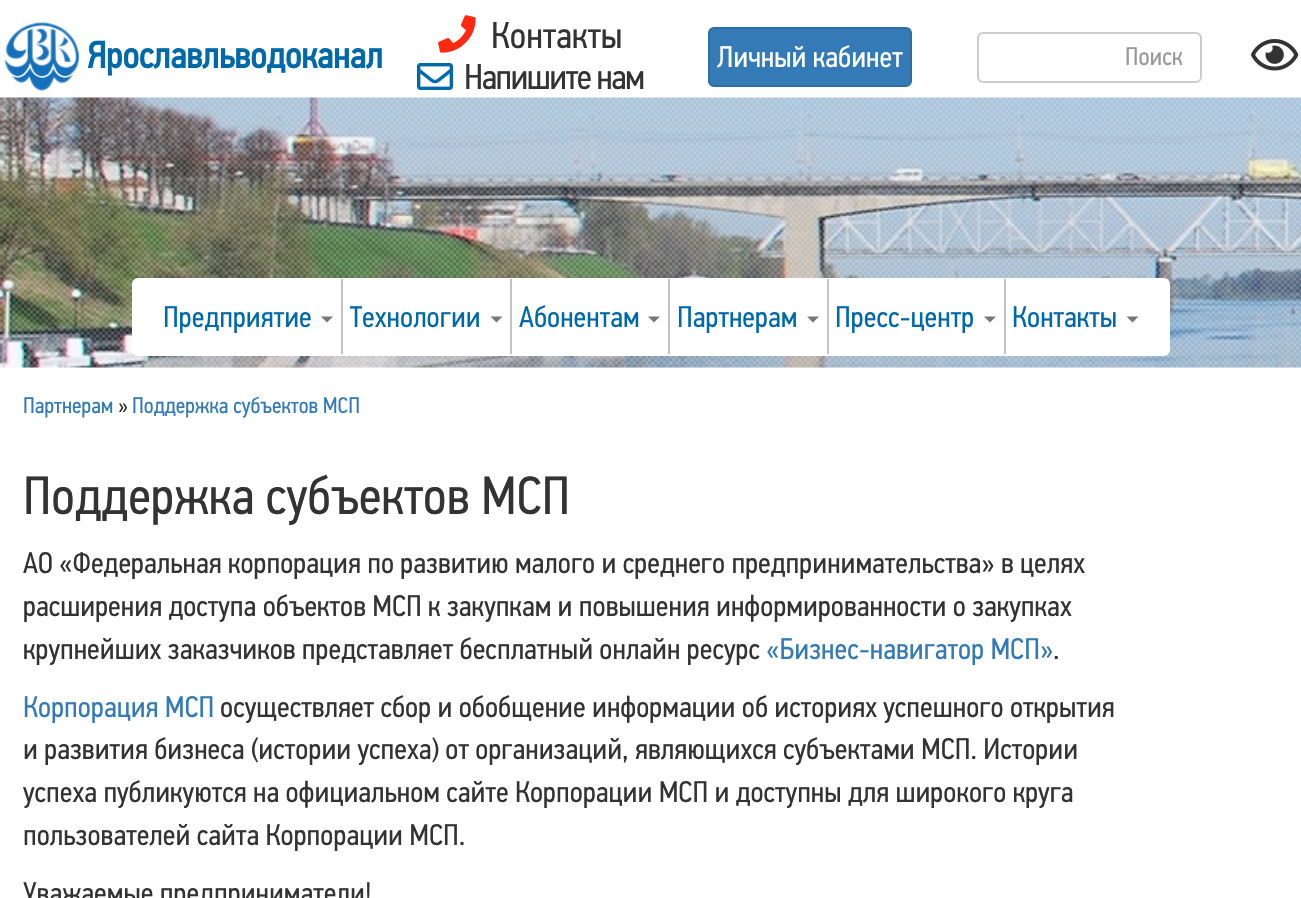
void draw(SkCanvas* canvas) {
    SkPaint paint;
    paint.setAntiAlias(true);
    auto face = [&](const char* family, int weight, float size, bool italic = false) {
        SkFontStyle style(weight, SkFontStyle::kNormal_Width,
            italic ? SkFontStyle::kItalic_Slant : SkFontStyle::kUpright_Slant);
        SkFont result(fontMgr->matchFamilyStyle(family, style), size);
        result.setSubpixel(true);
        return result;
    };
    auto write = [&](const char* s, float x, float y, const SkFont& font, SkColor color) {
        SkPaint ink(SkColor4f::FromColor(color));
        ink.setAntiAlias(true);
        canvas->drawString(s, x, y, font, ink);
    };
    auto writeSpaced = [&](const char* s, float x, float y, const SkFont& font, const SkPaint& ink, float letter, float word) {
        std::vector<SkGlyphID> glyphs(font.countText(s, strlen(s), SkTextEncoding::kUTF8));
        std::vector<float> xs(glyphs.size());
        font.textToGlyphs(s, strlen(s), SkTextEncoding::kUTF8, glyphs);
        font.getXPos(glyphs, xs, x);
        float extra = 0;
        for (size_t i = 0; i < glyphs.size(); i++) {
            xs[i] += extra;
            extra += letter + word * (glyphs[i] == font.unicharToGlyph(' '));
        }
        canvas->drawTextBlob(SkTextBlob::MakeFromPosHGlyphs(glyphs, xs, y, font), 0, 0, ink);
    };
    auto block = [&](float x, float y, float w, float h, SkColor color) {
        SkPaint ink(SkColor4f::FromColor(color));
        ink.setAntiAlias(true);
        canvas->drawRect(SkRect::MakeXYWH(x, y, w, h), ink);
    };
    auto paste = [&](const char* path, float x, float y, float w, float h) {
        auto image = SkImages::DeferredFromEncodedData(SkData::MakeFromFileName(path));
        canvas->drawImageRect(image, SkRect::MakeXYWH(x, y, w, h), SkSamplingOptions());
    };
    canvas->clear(SK_ColorWHITE);
    paste("pic1.png", 4, 22, 76, 69);
    auto kFont1 = face("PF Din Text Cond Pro", 700, 37.5f);
    write("Ярославльводоканал", 87, 68, kFont1, SkColorSetRGB(0, 105, 170));
    paste("pic2.png", 438, 15, 38, 38);
    auto kFont2 = face("PF Din Text Cond Pro", 400, 37.5f);
    write("Контакты", 491, 48, kFont2, SkColorSetRGB(51, 51, 51));
    paste("pic3.png", 417, 63, 36, 27);
    auto kFont3 = face("PF Din Text Cond Pro", 400, 36);
    paint.setColor(SkColorSetRGB(51, 51, 51));
    writeSpaced("Напишите нам", 464, 89, kFont3, paint, -1.5f, 0);
    paint.setColor(SkColorSetRGB(51, 122, 183));
    canvas->drawRoundRect(SkRect::MakeXYWH(709, 28, 202, 58), 5, 5, paint);
    paint.setStyle(SkPaint::kStroke_Style);
    paint.setStrokeWidth(2);
    paint.setColor(SkColorSetRGB(46, 109, 164));
    canvas->drawRoundRect(SkRect::MakeXYWH(709, 28, 202, 58), 5, 5, paint);
    auto kFont4 = face("PF Din Text Cond Pro", 400, 30);
    write("Личный кабинет", 717, 67, kFont4, SK_ColorWHITE);
    paint.setStyle(SkPaint::kFill_Style);
    paint.setColor(SkColorSetRGB(236, 236, 236));
    canvas->drawPath(SkPathBuilder().moveTo(982, 34).lineTo(1196, 34).cubicTo(1198, 34, 1200, 37, 1200, 39).lineTo(1200, 38).cubicTo(1200, 35, 1198, 33, 1195, 33).lineTo(983, 33).cubicTo(980, 33, 978, 35, 978, 38).lineTo(978, 39).cubicTo(978, 37, 980, 34, 982, 34).close().detach(), paint);
    paint.setStyle(SkPaint::kStroke_Style);
    paint.setColor(SkColorSetRGB(204, 204, 204));
    canvas->drawRoundRect(SkRect::MakeXYWH(978, 33, 223, 49), 5, 5, paint);
    auto kFont5 = face("PF Din Text Cond Pro", 400, 25.5f);
    write("Поиск", 1125, 65, kFont5, SkColorSetRGB(153, 153, 153));
    paste("pic4.png", 1251, 39, 48, 32);
    paste("pic5.png", 0, 97, 1301, 271);
    paste("pic6.png", 0, 97, 1301, 271);
    paint.setStyle(SkPaint::kFill_Style);
    paint.setColor(SK_ColorWHITE);
    canvas->drawRoundRect(SkRect::MakeXYWH(133, 279, 1036, 76), 5, 5, paint);
    paint.setStyle(SkPaint::kStroke_Style);
    canvas->drawRoundRect(SkRect::MakeXYWH(133, 279, 1036, 76), 5, 5, paint);
    block(341, 279, 2, 75, SkColorSetRGB(194, 194, 194));
    write("Предприятие", 163, 327, kFont4, SkColorSetRGB(0, 105, 170));
    paint.setStyle(SkPaint::kFill_Style);
    paint.setColor(SkColorSetRGB(119, 119, 119));
    canvas->drawPath(SkPathBuilder().moveTo(321, 316.5f).lineTo(333, 316.5f).lineTo(327, 322.5f).close().detach(), paint);
    block(510, 279, 2, 75, SkColorSetRGB(194, 194, 194));
    write("Технологии", 350, 327, kFont4, SkColorSetRGB(0, 105, 170));
    canvas->drawPath(SkPathBuilder().moveTo(490.5f, 316.5f).lineTo(502.5f, 316.5f).lineTo(496.5f, 322.5f).close().detach(), paint);
    block(668, 279, 2, 75, SkColorSetRGB(194, 194, 194));
    write("Абонентам", 519, 327, kFont4, SkColorSetRGB(0, 105, 170));
    canvas->drawPath(SkPathBuilder().moveTo(648, 316.5f).lineTo(660, 316.5f).lineTo(654, 322.5f).close().detach(), paint);
    block(827, 279, 2, 75, SkColorSetRGB(194, 194, 194));
    write("Партнерам", 677, 327, kFont4, SkColorSetRGB(0, 105, 170));
    canvas->drawPath(SkPathBuilder().moveTo(807, 316.5f).lineTo(819, 316.5f).lineTo(813, 322.5f).close().detach(), paint);
    block(1004, 279, 2, 75, SkColorSetRGB(194, 194, 194));
    write("Пресс-центр", 835, 327, kFont4, SkColorSetRGB(0, 105, 170));
    canvas->drawPath(SkPathBuilder().moveTo(984, 316.5f).lineTo(996, 316.5f).lineTo(990, 322.5f).close().detach(), paint);
    write("Контакты", 1012, 327, kFont4, SkColorSetRGB(0, 105, 170));
    canvas->drawPath(SkPathBuilder().moveTo(1126.5f, 316.5f).lineTo(1138.5f, 316.5f).lineTo(1132.5f, 322.5f).close().detach(), paint);
    auto kFont6 = face("PF Din Text Cond Pro", 400, 22.5f);
    write("Партнерам", 23, 413, kFont6, SkColorSetRGB(51, 122, 183));
    write("»", 118, 413, kFont6, SkColorSetRGB(51, 51, 51));
    write("Поддержка субъектов МСП", 132, 413, kFont6, SkColorSetRGB(51, 122, 183));
    auto kFont7 = face("PF Din Text Cond Pro", 400, 54);
    write("Поддержка субъектов МСП", 23, 514, kFont7, SkColorSetRGB(51, 51, 51));
    write("АО «Федеральная корпорация по развитию малого и среднего предпринимательства» в целях", 23, 573, kFont4, SkColorSetRGB(51, 51, 51));
    write("расширения доступа объектов МСП к закупкам и повышения информированности о закупках", 23, 616, kFont4, SkColorSetRGB(51, 51, 51));
    write("крупнейших заказчиков представляет бесплатный онлайн ресурс", 23, 659, kFont4, SkColorSetRGB(51, 51, 51));
    write("«Бизнес-навигатор МСП»", 766, 659, kFont4, SkColorSetRGB(51, 122, 183));
    write(".", 1053, 659, kFont4, SkColorSetRGB(51, 51, 51));
    write("Корпорация МСП", 23, 717, kFont4, SkColorSetRGB(51, 122, 183));
    write("осуществляет сбор и обобщение информации об историях успешного открытия", 220, 717, kFont4, SkColorSetRGB(51, 51, 51));
    write("и развития бизнеса (истории успеха) от организаций, являющихся субъектами МСП. Истории", 23, 759, kFont4, SkColorSetRGB(51, 51, 51));
    write("успеха публикуются на официальном сайте Корпорации МСП и доступны для широкого круга", 23, 802, kFont4, SkColorSetRGB(51, 51, 51));
    write("пользователей сайта Корпорации МСП.", 23, 845, kFont4, SkColorSetRGB(51, 51, 51));
    write("Уважаемые предприниматели!", 23, 903, kFont4, SkColorSetRGB(51, 51, 51));
}
